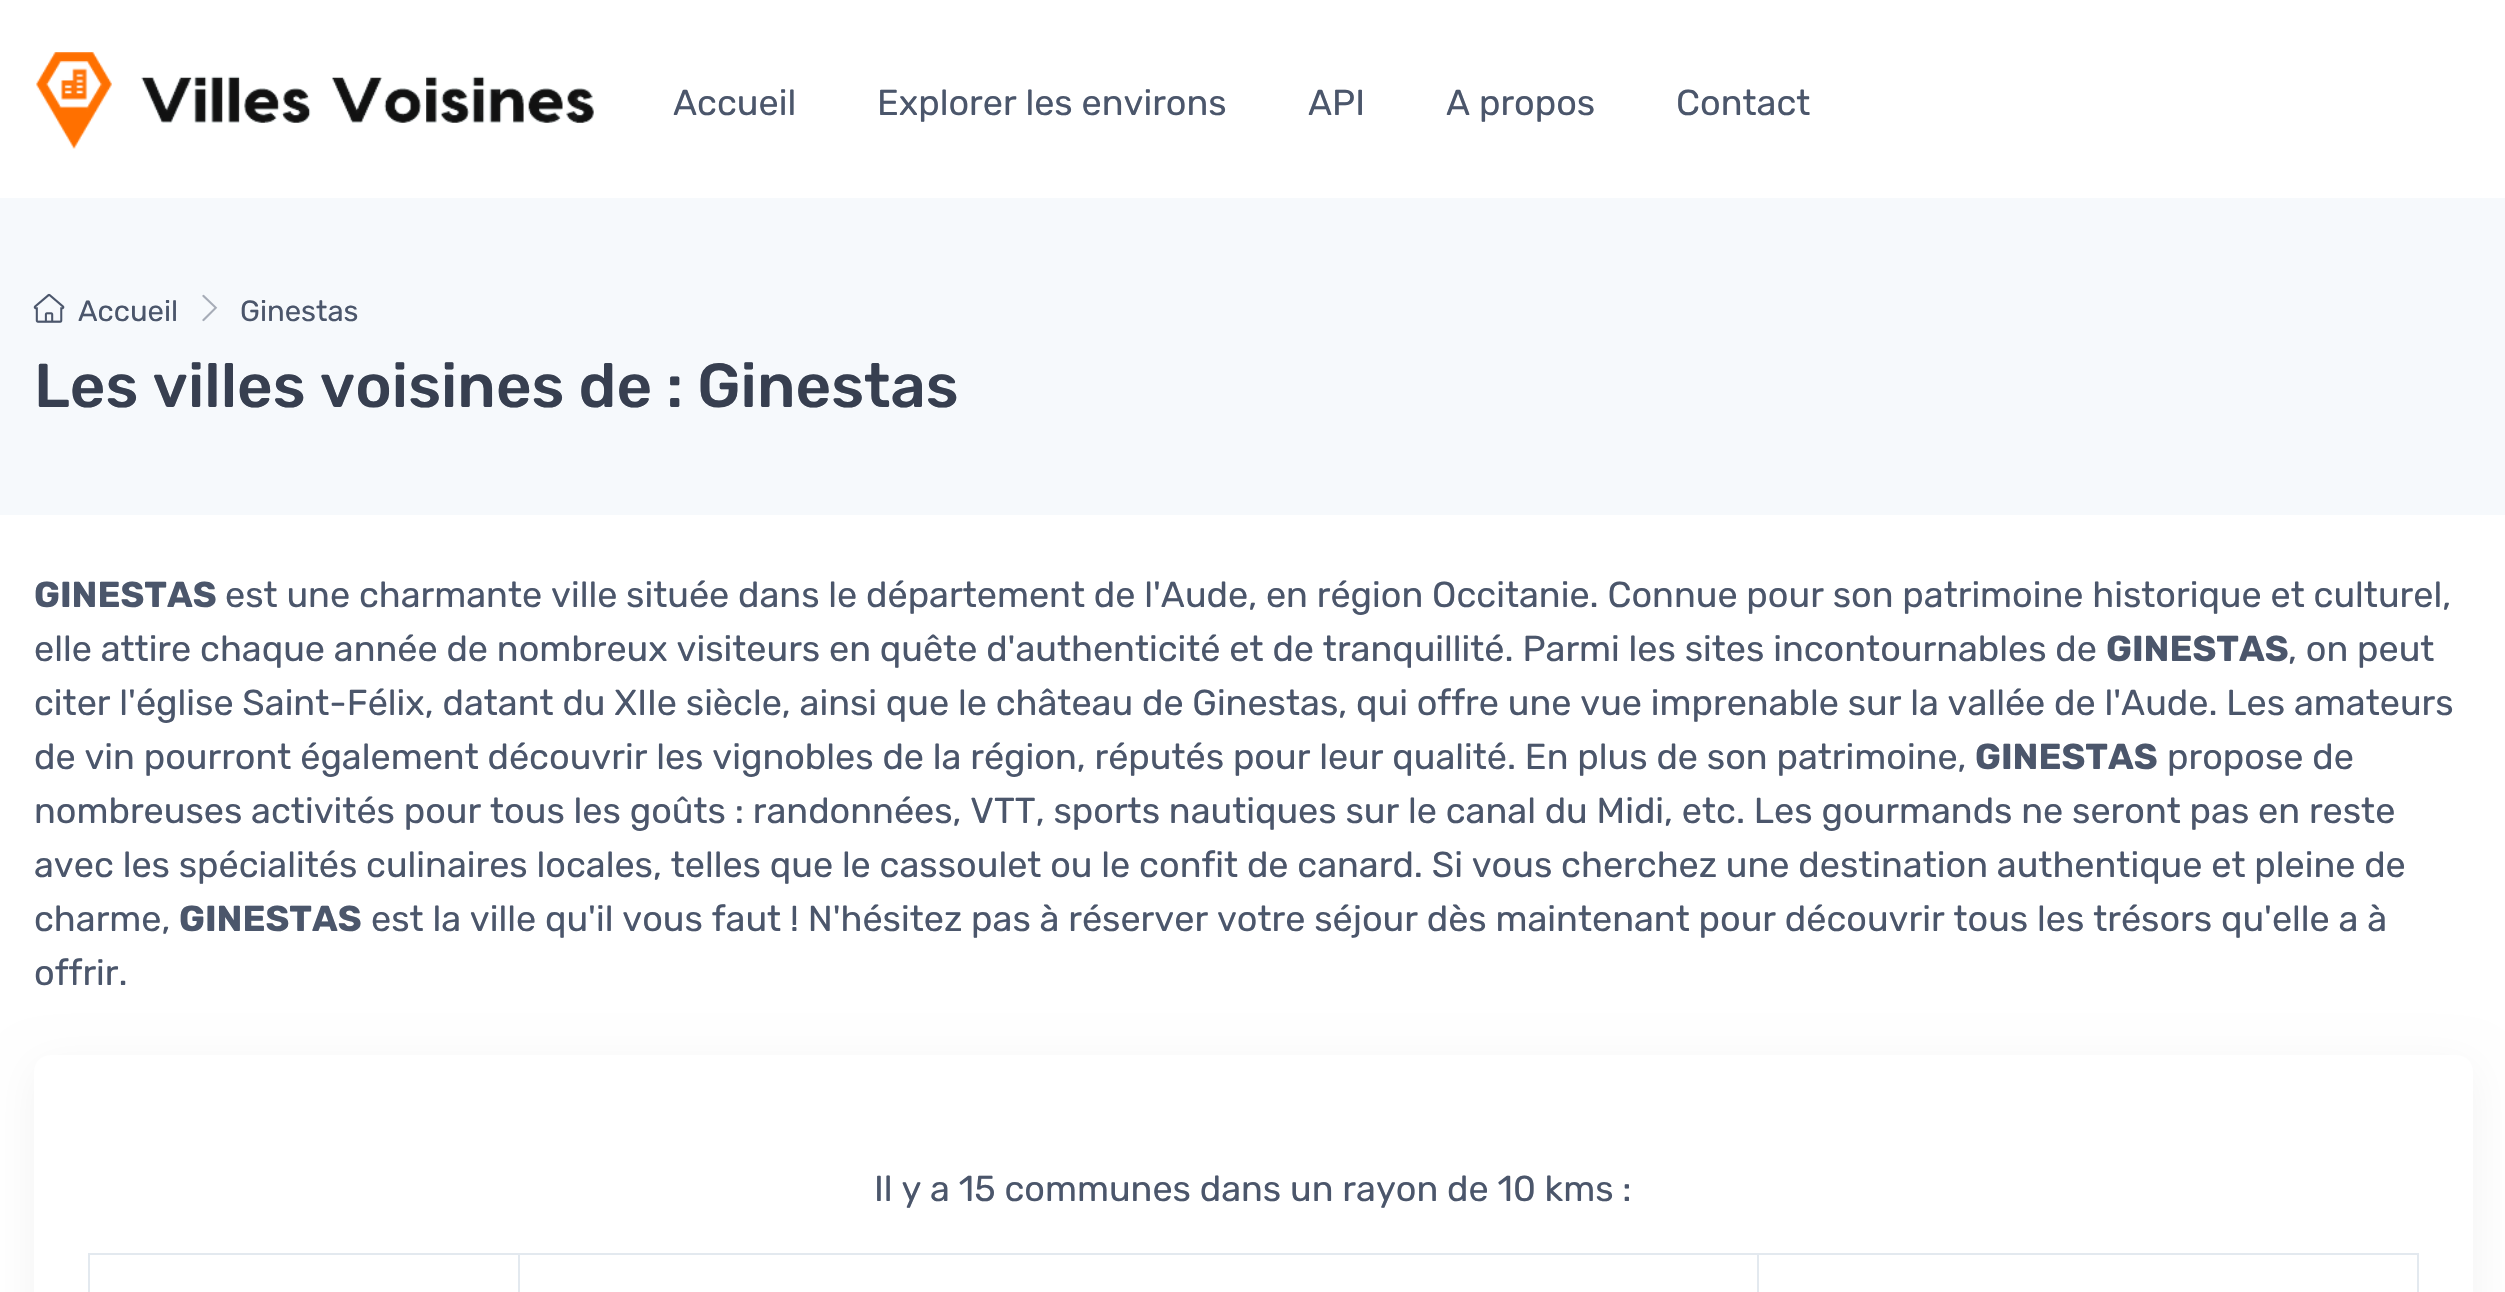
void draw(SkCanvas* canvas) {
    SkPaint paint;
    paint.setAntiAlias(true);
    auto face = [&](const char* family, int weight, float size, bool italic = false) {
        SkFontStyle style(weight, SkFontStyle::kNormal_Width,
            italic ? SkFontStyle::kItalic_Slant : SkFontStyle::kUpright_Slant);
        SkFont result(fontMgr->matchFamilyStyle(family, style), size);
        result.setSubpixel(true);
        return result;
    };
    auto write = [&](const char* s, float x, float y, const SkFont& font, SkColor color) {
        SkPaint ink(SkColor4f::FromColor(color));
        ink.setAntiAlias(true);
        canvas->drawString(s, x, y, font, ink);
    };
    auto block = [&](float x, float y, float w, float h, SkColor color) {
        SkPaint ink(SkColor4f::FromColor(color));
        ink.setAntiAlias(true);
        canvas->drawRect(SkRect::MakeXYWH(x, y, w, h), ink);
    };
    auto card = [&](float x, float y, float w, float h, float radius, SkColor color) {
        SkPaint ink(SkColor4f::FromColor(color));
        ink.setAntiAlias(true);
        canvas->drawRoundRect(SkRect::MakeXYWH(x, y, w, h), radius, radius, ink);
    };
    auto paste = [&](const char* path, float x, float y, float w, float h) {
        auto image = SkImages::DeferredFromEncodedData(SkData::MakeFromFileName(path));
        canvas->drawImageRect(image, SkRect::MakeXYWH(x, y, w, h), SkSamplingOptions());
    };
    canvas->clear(SK_ColorWHITE);
    paste("pic1.png", 36, 52, 558, 97);
    auto kFont1 = face("Rubik", 400, 36);
    write("Accueil", 673, 115, kFont1, SkColorSetRGB(75, 86, 107));
    write("Explorer les environs", 877, 115, kFont1, SkColorSetRGB(75, 86, 107));
    write("API", 1308, 115, kFont1, SkColorSetRGB(75, 86, 107));
    write("A propos", 1446, 115, kFont1, SkColorSetRGB(75, 86, 107));
    write("Contact", 1676, 115, kFont1, SkColorSetRGB(75, 86, 107));
    block(0, 198, 2505, 317, SkColorSetRGB(246, 249, 252));
    paste("pic2.png", 33, 293, 32, 30);
    auto kFont2 = face("Rubik", 400, 29.25f);
    write("Accueil", 78, 321, kFont2, SkColorSetRGB(75, 86, 107));
    paste("pic3.png", 202, 294, 16, 28);
    write("Ginestas", 240, 321, kFont2, SkColorSetRGB(75, 86, 107));
    auto kFont3 = face("Rubik", 500, 61.8f);
    write("Les villes voisines de : Ginestas", 34, 407, kFont3, SkColorSetRGB(55, 63, 80));
    auto kFont4 = face("Rubik", 700, 36);
    write("GINESTAS", 34, 607, kFont4, SkColorSetRGB(75, 86, 107));
    write("est une charmante ville située dans le département de l'Aude, en région Occitanie. Connue pour son patrimoine historique et culturel,", 225, 607, kFont1, SkColorSetRGB(75, 86, 107));
    write("elle attire chaque année de nombreux visiteurs en quête d'authenticité et de tranquillité. Parmi les sites incontournables de", 34, 661, kFont1, SkColorSetRGB(75, 86, 107));
    write("GINESTAS", 2106, 661, kFont4, SkColorSetRGB(75, 86, 107));
    write(", on peut", 2288, 661, kFont1, SkColorSetRGB(75, 86, 107));
    write("citer l'église Saint-Félix, datant du XIIe siècle, ainsi que le château de Ginestas, qui offre une vue imprenable sur la vallée de l'Aude. Les amateurs", 34, 715, kFont1, SkColorSetRGB(75, 86, 107));
    write("de vin pourront également découvrir les vignobles de la région, réputés pour leur qualité. En plus de son patrimoine,", 34, 769, kFont1, SkColorSetRGB(75, 86, 107));
    write("GINESTAS", 1975, 769, kFont4, SkColorSetRGB(75, 86, 107));
    write("propose de", 2167, 769, kFont1, SkColorSetRGB(75, 86, 107));
    write("nombreuses activités pour tous les goûts : randonnées, VTT, sports nautiques sur le canal du Midi, etc. Les gourmands ne seront pas en reste", 34, 823, kFont1, SkColorSetRGB(75, 86, 107));
    write("avec les spécialités culinaires locales, telles que le cassoulet ou le confit de canard. Si vous cherchez une destination authentique et pleine de", 34, 877, kFont1, SkColorSetRGB(75, 86, 107));
    write("charme,", 34, 931, kFont1, SkColorSetRGB(75, 86, 107));
    write("GINESTAS", 179, 931, kFont4, SkColorSetRGB(75, 86, 107));
    write("est la ville qu'il vous faut ! N'hésitez pas à réserver votre séjour dès maintenant pour découvrir tous les trésors qu'elle a à", 371, 931, kFont1, SkColorSetRGB(75, 86, 107));
    write("offrir.", 34, 985, kFont1, SkColorSetRGB(75, 86, 107));
    paint.setColor(SkColorSetARGB(13, 0, 0, 0));
    paint.setMaskFilter(SkMaskFilter::MakeBlur(kNormal_SkBlurStyle, 22.5f));
    canvas->drawRoundRect(SkRect::MakeXYWH(36, 1067, 2435, 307), 14, 14, paint);
    paint.setMaskFilter(nullptr);
    card(34, 1055, 2439, 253, 16, SK_ColorWHITE);
    write("Il y a 15 communes dans un rayon de 10 kms :", 874, 1201, kFont1, SkColorSetRGB(75, 86, 107));
    block(88, 1253, 2331, 2, SkColorSetRGB(227, 233, 239));
    block(88, 1253, 2, 39, SkColorSetRGB(227, 233, 239));
    block(518, 1253, 2, 39, SkColorSetRGB(227, 233, 239));
    block(2417, 1253, 2, 39, SkColorSetRGB(227, 233, 239));
    block(1757, 1253, 2, 39, SkColorSetRGB(227, 233, 239));
}
